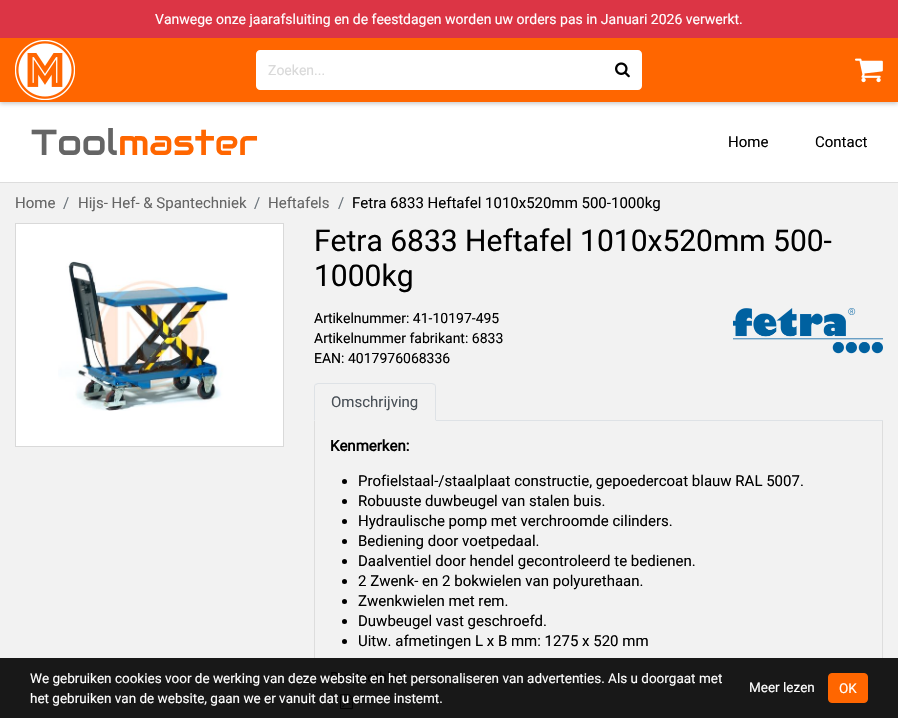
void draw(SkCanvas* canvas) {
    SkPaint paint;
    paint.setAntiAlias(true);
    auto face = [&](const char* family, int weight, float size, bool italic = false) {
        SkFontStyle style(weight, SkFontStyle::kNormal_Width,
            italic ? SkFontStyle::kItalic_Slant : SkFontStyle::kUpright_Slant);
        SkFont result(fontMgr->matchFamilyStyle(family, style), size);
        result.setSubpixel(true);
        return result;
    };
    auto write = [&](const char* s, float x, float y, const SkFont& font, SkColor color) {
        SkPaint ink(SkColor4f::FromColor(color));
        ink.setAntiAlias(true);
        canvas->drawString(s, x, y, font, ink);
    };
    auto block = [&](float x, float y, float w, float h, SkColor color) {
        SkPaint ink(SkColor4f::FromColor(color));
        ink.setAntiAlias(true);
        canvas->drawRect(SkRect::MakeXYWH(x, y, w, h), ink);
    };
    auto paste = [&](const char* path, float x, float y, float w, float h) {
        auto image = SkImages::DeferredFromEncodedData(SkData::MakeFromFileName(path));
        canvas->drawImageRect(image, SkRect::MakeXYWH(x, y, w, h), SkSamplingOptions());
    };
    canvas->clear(SkColorSetRGB(242, 242, 242));
    block(0, 658, 898, 60, SkColorSetRGB(24, 24, 24));
    block(0, 102, 898, 80, SK_ColorWHITE);
    paint.setColor(SkColorSetARGB(51, 0, 0, 0));
    paint.setMaskFilter(SkMaskFilter::MakeBlur(kNormal_SkBlurStyle, 2));
    canvas->drawRect(SkRect::MakeXYWH(0, 40, 898, 64), paint);
    paint.setMaskFilter(nullptr);
    block(0, 0, 898, 38, SkColorSetRGB(220, 53, 69));
    auto kFont1 = face("Roboto", 400, 14);
    write("Vanwege onze jaarafsluiting en de feestdagen worden uw orders pas in Januari 2026 verwerkt.", 155, 24, kFont1, SK_ColorWHITE);
    block(0, 38, 898, 64, SkColorSetRGB(255, 102, 0));
    paste("pic1.png", 15, 40, 60, 60);
    paint.setColor(SK_ColorWHITE);
    canvas->drawPath(SkPathBuilder().moveTo(260, 50).lineTo(603, 50).lineTo(603, 90).lineTo(260, 90).cubicTo(258, 90, 256, 88, 256, 86).lineTo(256, 54).cubicTo(256, 52, 258, 50, 260, 50).close().detach(), paint);
    write("Zoeken...", 268, 75, kFont1, SkColorSetRGB(217, 217, 217));
    canvas->drawPath(SkPathBuilder().moveTo(602, 50).lineTo(638, 50).cubicTo(640, 50, 642, 52, 642, 54).lineTo(642, 86).cubicTo(642, 88, 640, 90, 638, 90).lineTo(602, 90).close().detach(), paint);
    paste("pic2.png", 615, 62, 15, 16);
    paste("pic3.png", 855, 58, 28, 25);
    block(0, 182, 898, 1, SkColorSetRGB(221, 221, 221));
    auto kFont2 = face("Audiowide", 400, 36);
    write("Tool", 31, 155, kFont2, SkColorSetRGB(101, 101, 101));
    write("master", 118, 155, kFont2, SkColorSetRGB(255, 102, 0));
    auto kFont3 = face("Roboto", 400, 15);
    write("Home", 728, 147, kFont3, SK_ColorBLACK);
    write("Contact", 815, 147, kFont3, SK_ColorBLACK);
    write("Home", 15, 208, kFont3, SkColorSetRGB(101, 101, 101));
    write("/", 63, 208, kFont3, SkColorSetRGB(108, 117, 125));
    write("Hijs- Hef- & Spantechniek", 78, 208, kFont3, SkColorSetRGB(101, 101, 101));
    write("/", 254, 208, kFont3, SkColorSetRGB(108, 117, 125));
    write("Heftafels", 268, 208, kFont3, SkColorSetRGB(101, 101, 101));
    write("/", 338, 208, kFont3, SkColorSetRGB(108, 117, 125));
    write("Fetra 6833 Heftafel 1010x520mm 500-1000kg", 352, 208, kFont3, SK_ColorBLACK);
    canvas->drawRect(SkRect::MakeXYWH(15.5f, 223.5f, 268, 223), paint);
    paint.setStyle(SkPaint::kStroke_Style);
    paint.setStrokeWidth(1);
    paint.setColor(SkColorSetRGB(217, 217, 217));
    canvas->drawRect(SkRect::MakeXYWH(15.5f, 223.5f, 268, 223), paint);
    paste("pic4.png", 58, 261, 172, 150);
    auto kFont4 = face("Roboto", 400, 30);
    write("Fetra 6833 Heftafel 1010x520mm 500-", 314, 251, kFont4, SK_ColorBLACK);
    write("1000kg", 314, 286, kFont4, SK_ColorBLACK);
    write("Artikelnummer: 41-10197-495", 314, 323, kFont1, SK_ColorBLACK);
    write("Artikelnummer fabrikant: 6833", 314, 343, kFont1, SK_ColorBLACK);
    write("EAN: 4017976068336", 314, 363, kFont1, SK_ColorBLACK);
    paste("pic5.png", 733, 308, 150, 46);
    block(436, 420, 447, 1, SkColorSetRGB(222, 226, 230));
    paint.setStyle(SkPaint::kFill_Style);
    paint.setColor(SkColorSetRGB(222, 226, 230));
    canvas->drawPath(SkPathBuilder().moveTo(318, 383).lineTo(315, 384).lineTo(316, 385).lineTo(318, 384).lineTo(432, 384).lineTo(434, 385).lineTo(435, 384).lineTo(432, 383).close().detach(), paint);
    canvas->drawPath(SkPathBuilder().moveTo(436, 421).lineTo(436, 387).cubicTo(436, 386, 435.5f, 385, 435, 384).lineTo(434, 385).cubicTo(435, 385, 435, 386, 435, 387).lineTo(435, 420).close().detach(), paint);
    paint.setColor(SkColorSetRGB(242, 242, 242));
    canvas->drawPath(SkPathBuilder().moveTo(436, 421).lineTo(435, 420).lineTo(315, 420).lineTo(314, 421).close().detach(), paint);
    paint.setColor(SkColorSetRGB(222, 226, 230));
    canvas->drawPath(SkPathBuilder().moveTo(314, 421).lineTo(315, 420).lineTo(315, 387).cubicTo(315, 386, 315, 385, 316, 385).lineTo(315, 384).cubicTo(314.5f, 385, 314, 386, 314, 387).close().detach(), paint);
    write("Omschrijving", 331, 407, kFont3, SkColorSetRGB(73, 80, 87));
    block(882, 421, 1, 237, SkColorSetRGB(221, 221, 221));
    block(314, 421, 1, 237, SkColorSetRGB(221, 221, 221));
    auto kFont5 = face("Roboto", 700, 15);
    write("Kenmerken:", 330, 451, kFont5, SK_ColorBLACK);
    paint.setColor(SK_ColorBLACK);
    canvas->drawCircle(344.5f, 481.5f, 2.5f, paint);
    write("Profielstaal-/staalplaat constructie, gepoedercoat blauw RAL 5007.", 358, 486, kFont3, SK_ColorBLACK);
    canvas->drawCircle(344.5f, 501.5f, 2.5f, paint);
    write("Robuuste duwbeugel van stalen buis.", 358, 506, kFont3, SK_ColorBLACK);
    canvas->drawCircle(344.5f, 521.5f, 2.5f, paint);
    write("Hydraulische pomp met verchroomde cilinders.", 358, 526, kFont3, SK_ColorBLACK);
    canvas->drawCircle(344.5f, 541.5f, 2.5f, paint);
    write("Bediening door voetpedaal.", 358, 546, kFont3, SK_ColorBLACK);
    canvas->drawCircle(344.5f, 561.5f, 2.5f, paint);
    write("Daalventiel door hendel gecontroleerd te bedienen.", 358, 566, kFont3, SK_ColorBLACK);
    canvas->drawCircle(344.5f, 581.5f, 2.5f, paint);
    write("2 Zwenk- en 2 bokwielen van polyurethaan.", 358, 586, kFont3, SK_ColorBLACK);
    canvas->drawCircle(344.5f, 601.5f, 2.5f, paint);
    write("Zwenkwielen met rem.", 358, 606, kFont3, SK_ColorBLACK);
    canvas->drawCircle(344.5f, 621.5f, 2.5f, paint);
    write("Duwbeugel vast geschroefd.", 358, 626, kFont3, SK_ColorBLACK);
    canvas->drawCircle(344.5f, 641.5f, 2.5f, paint);
    write("Uitw. afmetingen L x B mm: 1275 x 520 mm", 358, 646, kFont3, SK_ColorBLACK);
    write("Productblad", 330, 682, kFont1, SK_ColorBLACK);
    paste("pic6.png", 340, 694, 13, 16);
    auto kFont6 = face("Roboto", 400, 13.5f);
    write("We gebruiken cookies voor de werking van deze website en het personaliseren van advertenties. Als u doorgaat met", 30, 683, kFont6, SK_ColorWHITE);
    write("het gebruiken van de website, gaan we er vanuit dat u ermee instemt.", 30, 703, kFont6, SK_ColorWHITE);
    write("Meer lezen", 749, 692, kFont6, SK_ColorWHITE);
    paint.setColor(SkColorSetRGB(255, 102, 0));
    canvas->drawRoundRect(SkRect::MakeXYWH(828.5f, 673.5f, 39, 29), 3.5f, 3.5f, paint);
    paint.setStyle(SkPaint::kStroke_Style);
    canvas->drawRoundRect(SkRect::MakeXYWH(828.5f, 673.5f, 39, 29), 3.5f, 3.5f, paint);
    write("OK", 839, 693, kFont6, SK_ColorWHITE);
}
